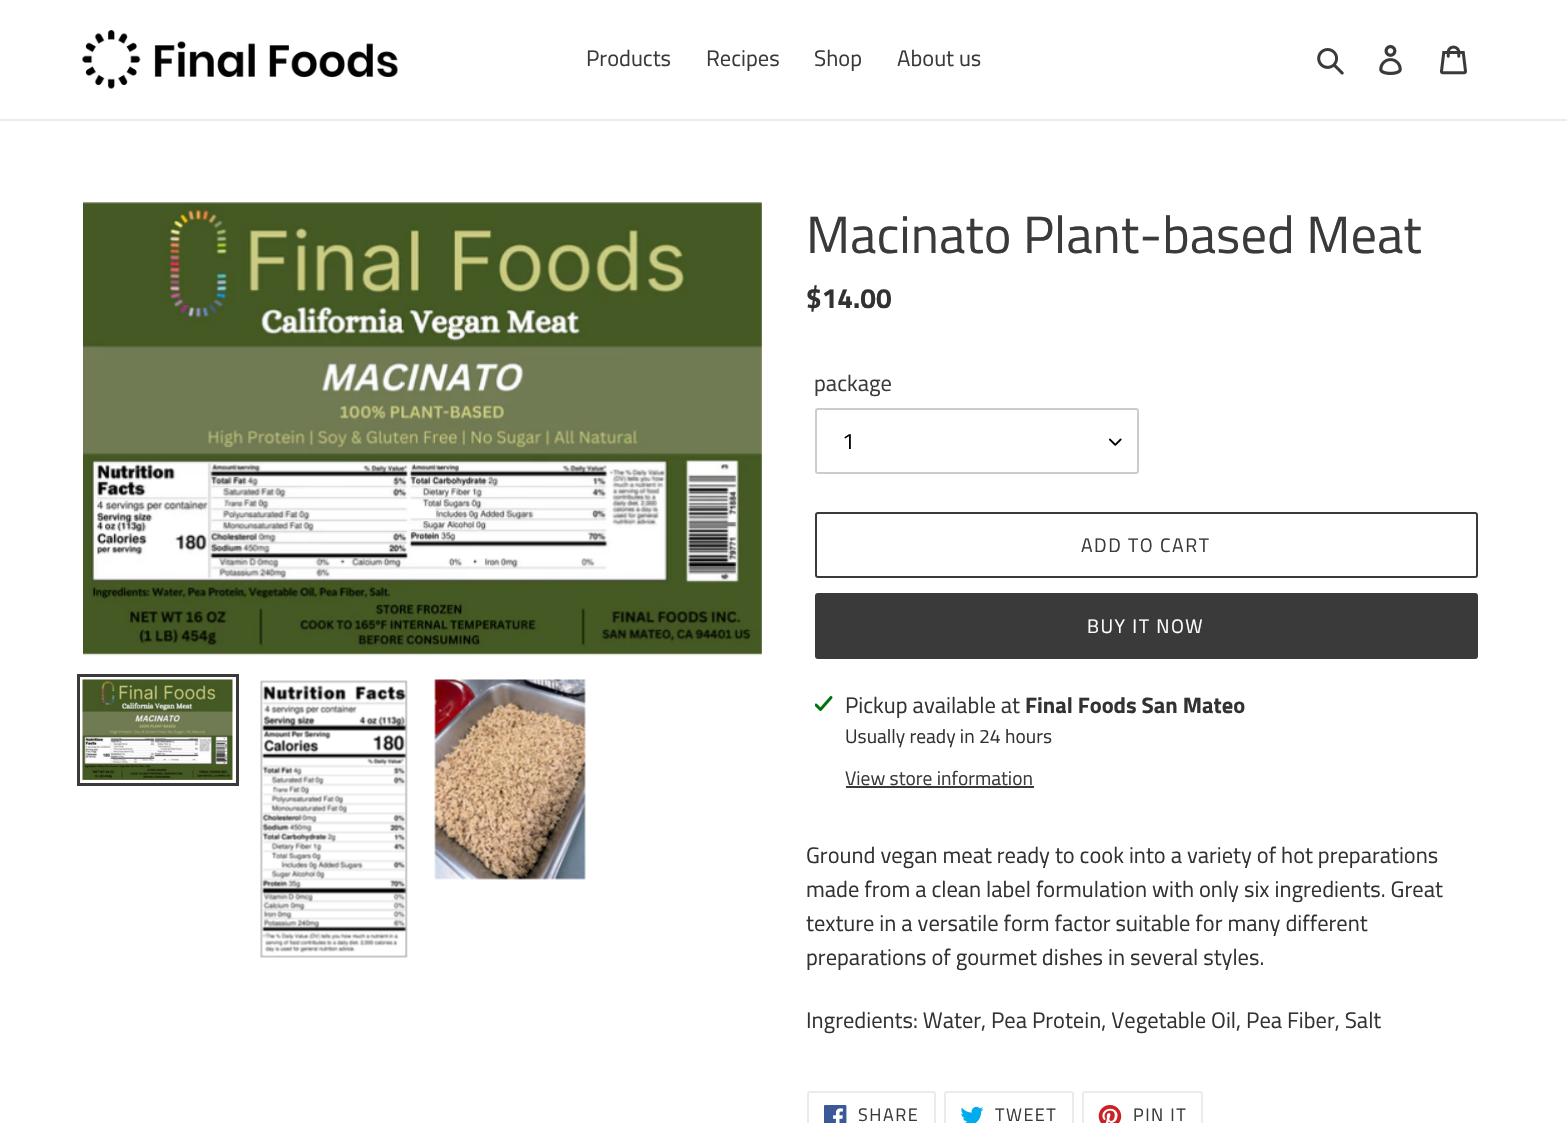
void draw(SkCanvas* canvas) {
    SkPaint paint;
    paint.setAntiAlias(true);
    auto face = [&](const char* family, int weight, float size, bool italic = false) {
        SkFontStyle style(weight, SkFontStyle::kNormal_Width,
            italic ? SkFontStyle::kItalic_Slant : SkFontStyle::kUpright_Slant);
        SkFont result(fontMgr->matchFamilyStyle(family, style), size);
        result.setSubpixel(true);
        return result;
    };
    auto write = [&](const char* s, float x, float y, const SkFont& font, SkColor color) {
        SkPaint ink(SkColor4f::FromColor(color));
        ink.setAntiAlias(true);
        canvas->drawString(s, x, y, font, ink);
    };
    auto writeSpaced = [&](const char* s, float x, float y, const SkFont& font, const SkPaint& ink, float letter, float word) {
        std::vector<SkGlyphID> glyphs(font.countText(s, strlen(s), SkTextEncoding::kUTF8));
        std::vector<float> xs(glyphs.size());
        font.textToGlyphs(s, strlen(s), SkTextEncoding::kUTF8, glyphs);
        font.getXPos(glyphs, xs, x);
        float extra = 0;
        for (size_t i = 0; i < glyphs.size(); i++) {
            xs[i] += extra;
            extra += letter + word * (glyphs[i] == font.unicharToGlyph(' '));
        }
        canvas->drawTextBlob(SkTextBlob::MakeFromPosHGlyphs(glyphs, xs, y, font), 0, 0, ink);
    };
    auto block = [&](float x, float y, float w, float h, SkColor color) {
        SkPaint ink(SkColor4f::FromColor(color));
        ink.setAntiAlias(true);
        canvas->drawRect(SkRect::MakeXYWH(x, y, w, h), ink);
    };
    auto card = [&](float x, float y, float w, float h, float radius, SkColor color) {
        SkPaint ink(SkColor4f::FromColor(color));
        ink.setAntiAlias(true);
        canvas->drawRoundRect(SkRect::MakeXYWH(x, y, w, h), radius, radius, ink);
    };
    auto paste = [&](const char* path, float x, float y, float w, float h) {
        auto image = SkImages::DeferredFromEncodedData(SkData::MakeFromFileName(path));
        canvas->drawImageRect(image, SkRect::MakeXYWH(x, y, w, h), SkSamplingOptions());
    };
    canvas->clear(SK_ColorWHITE);
    block(0, 119, 1567, 2, SkColorSetRGB(235, 235, 235));
    paste("pic1.png", 82, 30, 316, 59);
    auto kFont1 = face("Titillium Web", 400, 22.5f);
    write("Products", 586, 66, kFont1, SkColorSetRGB(58, 58, 58));
    write("Recipes", 706, 66, kFont1, SkColorSetRGB(58, 58, 58));
    write("Shop", 814, 66, kFont1, SkColorSetRGB(58, 58, 58));
    write("About us", 897, 66, kFont1, SkColorSetRGB(58, 58, 58));
    paste("pic2.png", 1317, 48, 27, 27);
    paste("pic3.png", 1379, 45, 23, 30);
    paste("pic4.png", 1440, 45, 27, 30);
    paste("pic5.png", 83, 202, 679, 454);
    paint.setStyle(SkPaint::kStroke_Style);
    paint.setStrokeWidth(3);
    paint.setColor(SkColorSetRGB(58, 58, 58));
    canvas->drawRect(SkRect::MakeXYWH(78.5f, 675.5f, 159, 109), paint);
    paste("pic6.png", 82, 679, 151, 101);
    paste("pic7.png", 260, 680, 148, 278);
    paste("pic8.png", 434, 679, 152, 201);
    auto kFont2 = face("Titillium Web", 400, 52.5f);
    write("Macinato Plant-based Meat", 806, 253, kFont2, SkColorSetRGB(58, 58, 58));
    auto kFont3 = face("Titillium Web", 700, 28);
    write("$14.00", 806, 308, kFont3, SkColorSetRGB(51, 50, 50));
    write("package", 814, 391, kFont1, SkColorSetRGB(58, 58, 58));
    paste("pic9.png", 1109, 438, 13, 8);
    paint.setStrokeWidth(2);
    paint.setColor(SkColorSetRGB(204, 204, 204));
    canvas->drawRoundRect(SkRect::MakeXYWH(816, 409, 322, 64), 2, 2, paint);
    write("1", 842, 449, kFont1, SK_ColorBLACK);
    paint.setColor(SkColorSetRGB(58, 58, 58));
    canvas->drawRoundRect(SkRect::MakeXYWH(816, 513, 661, 64), 2, 2, paint);
    auto kFont4 = face("Titillium Web", 400, 19.5f);
    paint.setStyle(SkPaint::kFill_Style);
    writeSpaced("ADD TO CART", 1081, 552, kFont4, paint, 1.5f, 0);
    card(815, 593, 663, 66, 3, SkColorSetRGB(58, 58, 58));
    paint.setColor(SK_ColorWHITE);
    writeSpaced("BUY IT NOW", 1087, 633, kFont4, paint, 1.5f, 0);
    paste("pic10.png", 815, 696, 18, 15);
    write("Pickup available at", 845, 713, kFont1, SkColorSetRGB(51, 50, 50));
    auto kFont5 = face("Titillium Web", 700, 22.5f);
    write("Final Foods San Mateo", 1025, 713, kFont5, SkColorSetRGB(51, 50, 50));
    write("Usually ready in 24 hours", 845, 743, kFont4, SkColorSetRGB(51, 50, 50));
    write("View store information", 845, 785, kFont4, SkColorSetRGB(58, 58, 58));
    block(846, 786, 188, 2, SkColorSetRGB(58, 58, 58));
    write("Ground vegan meat ready to cook into a variety of hot preparations", 806, 863, kFont1, SkColorSetRGB(51, 50, 50));
    write("made from a clean label formulation with only six ingredients. Great", 806, 897, kFont1, SkColorSetRGB(51, 50, 50));
    write("texture in a versatile form factor suitable for many different", 806, 931, kFont1, SkColorSetRGB(51, 50, 50));
    write("preparations of gourmet dishes in several styles.", 806, 965, kFont1, SkColorSetRGB(51, 50, 50));
    write("Ingredients: Water, Pea Protein, Vegetable Oil, Pea Fiber, Salt", 806, 1028, kFont1, SkColorSetRGB(51, 50, 50));
    paint.setStyle(SkPaint::kStroke_Style);
    paint.setColor(SkColorSetRGB(235, 235, 235));
    canvas->drawRoundRect(SkRect::MakeXYWH(808, 1092, 127, 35), 2, 2, paint);
    paste("pic11.png", 824, 1105, 23, 18);
    auto kFont6 = face("Titillium Web", 400, 18);
    paint.setStyle(SkPaint::kFill_Style);
    paint.setColor(SkColorSetRGB(58, 58, 58));
    writeSpaced("SHARE", 858, 1121, kFont6, paint, 1.5f, 0);
    paint.setStyle(SkPaint::kStroke_Style);
    paint.setColor(SkColorSetRGB(235, 235, 235));
    canvas->drawRoundRect(SkRect::MakeXYWH(945, 1092, 128, 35), 2, 2, paint);
    paste("pic12.png", 961, 1106, 23, 17);
    paint.setStyle(SkPaint::kFill_Style);
    paint.setColor(SkColorSetRGB(58, 58, 58));
    writeSpaced("TWEET", 995, 1121, kFont6, paint, 1.5f, 0);
    paint.setStyle(SkPaint::kStroke_Style);
    paint.setColor(SkColorSetRGB(235, 235, 235));
    canvas->drawRoundRect(SkRect::MakeXYWH(1083, 1092, 119, 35), 2, 2, paint);
    paste("pic13.png", 1098, 1105, 24, 18);
    paint.setStyle(SkPaint::kFill_Style);
    paint.setColor(SkColorSetRGB(58, 58, 58));
    writeSpaced("PIN IT", 1133, 1121, kFont6, paint, 1.5f, 0);
}
